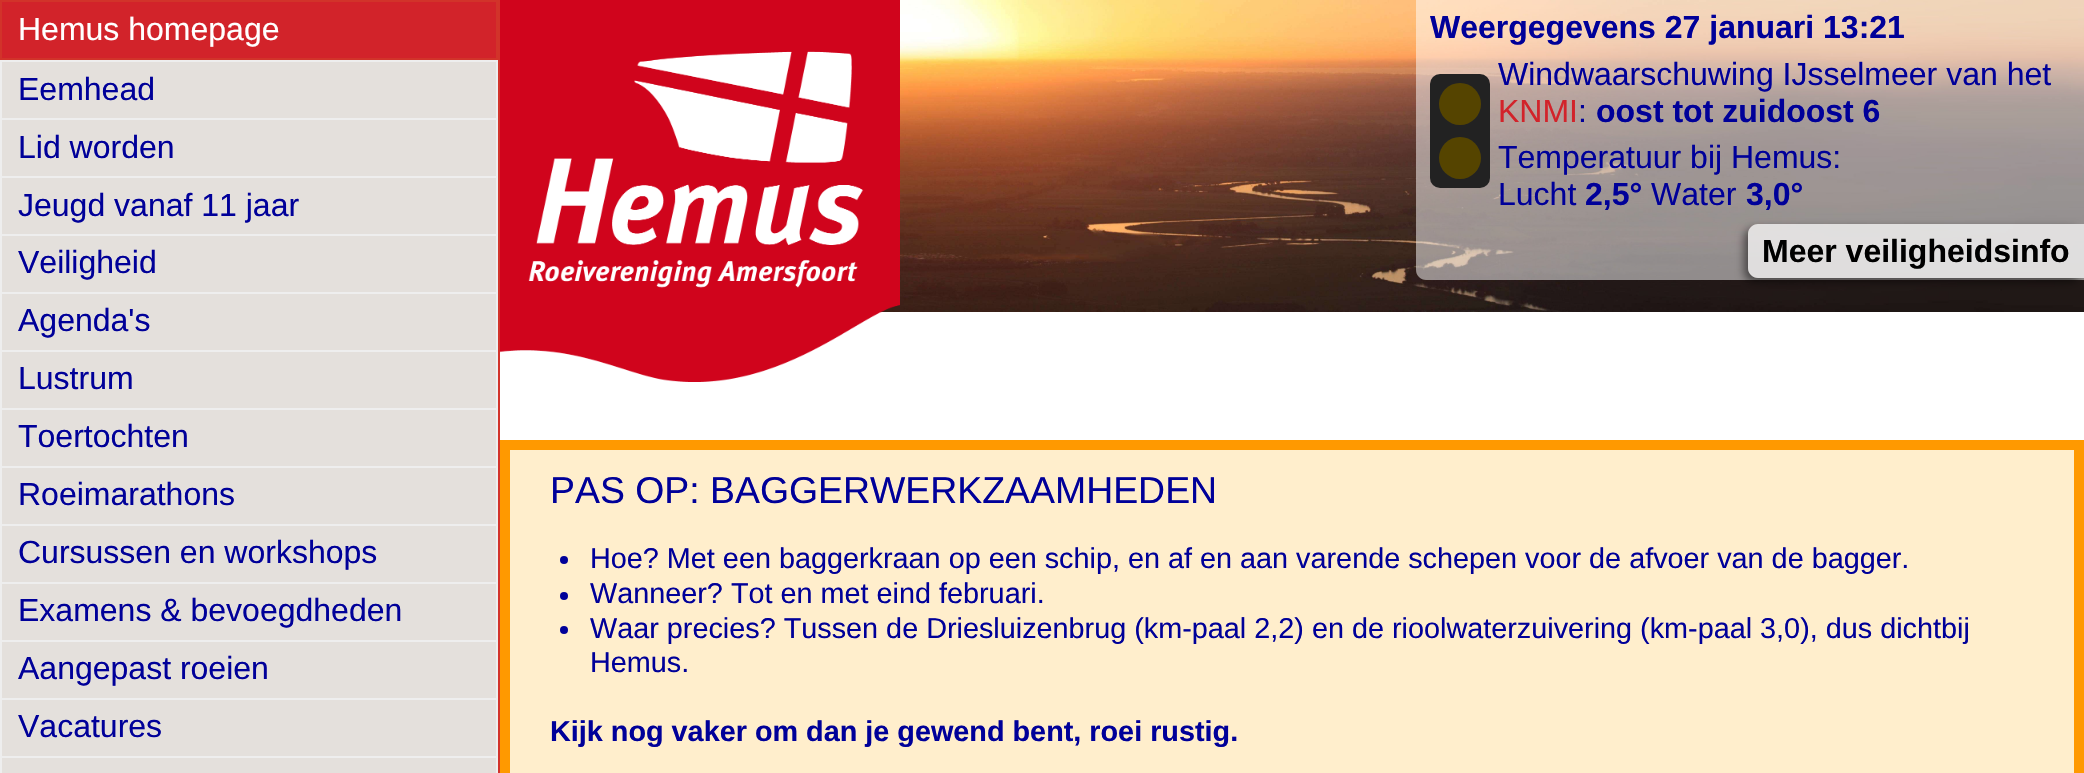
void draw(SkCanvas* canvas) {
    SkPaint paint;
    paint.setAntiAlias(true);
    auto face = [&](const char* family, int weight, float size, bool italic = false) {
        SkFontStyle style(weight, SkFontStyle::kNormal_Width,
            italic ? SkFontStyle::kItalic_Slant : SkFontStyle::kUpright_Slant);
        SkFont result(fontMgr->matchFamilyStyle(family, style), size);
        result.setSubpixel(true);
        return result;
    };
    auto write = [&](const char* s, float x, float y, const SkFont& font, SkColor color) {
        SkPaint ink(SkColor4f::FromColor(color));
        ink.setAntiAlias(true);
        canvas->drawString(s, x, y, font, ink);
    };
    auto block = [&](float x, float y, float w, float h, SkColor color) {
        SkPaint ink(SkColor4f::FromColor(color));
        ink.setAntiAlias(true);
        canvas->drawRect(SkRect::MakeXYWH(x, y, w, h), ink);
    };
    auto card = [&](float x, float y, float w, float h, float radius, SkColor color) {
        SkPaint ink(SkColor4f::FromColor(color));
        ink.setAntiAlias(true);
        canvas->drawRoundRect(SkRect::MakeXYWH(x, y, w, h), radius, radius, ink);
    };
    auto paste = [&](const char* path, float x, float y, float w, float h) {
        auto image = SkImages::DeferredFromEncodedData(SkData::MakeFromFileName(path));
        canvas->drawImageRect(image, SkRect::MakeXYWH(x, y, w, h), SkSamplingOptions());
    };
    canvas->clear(SkColorSetRGB(238, 238, 238));
    block(498, 0, 2, 773, SkColorSetRGB(210, 51, 42));
    paint.setColor(SkColorSetRGB(210, 35, 42));
    canvas->drawRect(SkRect::MakeXYWH(1, 1, 496, 58), paint);
    paint.setStyle(SkPaint::kStroke_Style);
    paint.setStrokeWidth(2);
    paint.setColor(SkColorSetRGB(210, 51, 42));
    canvas->drawRect(SkRect::MakeXYWH(1, 1, 496, 58), paint);
    auto kFont1 = face("Liberation Sans", 400, 32);
    write("Hemus homepage", 18, 40, kFont1, SK_ColorWHITE);
    block(2, 62, 494, 56, SkColorSetRGB(228, 224, 220));
    write("Eemhead", 18, 100, kFont1, SkColorSetRGB(0, 0, 153));
    block(2, 120, 494, 56, SkColorSetRGB(228, 224, 220));
    write("Lid worden", 18, 158, kFont1, SkColorSetRGB(0, 0, 153));
    block(2, 178, 494, 56, SkColorSetRGB(228, 224, 220));
    write("Jeugd vanaf 11 jaar", 18, 216, kFont1, SkColorSetRGB(0, 0, 153));
    block(2, 236, 494, 56, SkColorSetRGB(228, 224, 220));
    write("Veiligheid", 18, 273, kFont1, SkColorSetRGB(0, 0, 153));
    block(2, 294, 494, 56, SkColorSetRGB(228, 224, 220));
    write("Agenda's", 18, 331, kFont1, SkColorSetRGB(0, 0, 153));
    block(2, 352, 494, 56, SkColorSetRGB(228, 224, 220));
    write("Lustrum", 18, 389, kFont1, SkColorSetRGB(0, 0, 153));
    block(2, 410, 494, 56, SkColorSetRGB(228, 224, 220));
    write("Toertochten", 18, 447, kFont1, SkColorSetRGB(0, 0, 153));
    block(2, 468, 494, 56, SkColorSetRGB(228, 224, 220));
    write("Roeimarathons", 18, 505, kFont1, SkColorSetRGB(0, 0, 153));
    block(2, 526, 494, 56, SkColorSetRGB(228, 224, 220));
    write("Cursussen en workshops", 18, 563, kFont1, SkColorSetRGB(0, 0, 153));
    block(2, 584, 494, 56, SkColorSetRGB(228, 224, 220));
    write("Examens & bevoegdheden", 18, 621, kFont1, SkColorSetRGB(0, 0, 153));
    block(2, 642, 494, 56, SkColorSetRGB(228, 224, 220));
    write("Aangepast roeien", 18, 679, kFont1, SkColorSetRGB(0, 0, 153));
    block(2, 700, 494, 56, SkColorSetRGB(228, 224, 220));
    write("Vacatures", 18, 737, kFont1, SkColorSetRGB(0, 0, 153));
    block(2, 758, 494, 15, SkColorSetRGB(228, 224, 220));
    block(500, 312, 1584, 128, SK_ColorWHITE);
    paste("pic1.png", 880, 0, 1204, 312);
    paste("pic2.png", 500, 0, 400, 382);
    paint.setStyle(SkPaint::kFill_Style);
    paint.setColor(SkColorSetARGB(128, 255, 255, 255));
    canvas->drawPath(SkPathBuilder().moveTo(1416, 0).lineTo(2084, 0).lineTo(2084, 280).lineTo(1426, 280).cubicTo(1420.5f, 280, 1416, 275.5f, 1416, 270).close().detach(), paint);
    auto kFont2 = face("Liberation Sans", 700, 32);
    write("Weergegevens 27 januari 13:21", 1430, 38, kFont2, SkColorSetRGB(0, 0, 153));
    card(1430, 74, 60, 114, 10, SkColorSetRGB(34, 34, 34));
    paint.setColor(SkColorSetRGB(85, 68, 0));
    canvas->drawCircle(1460, 104, 21, paint);
    canvas->drawCircle(1460, 158, 21, paint);
    write("Windwaarschuwing IJsselmeer van het", 1498, 85, kFont1, SkColorSetRGB(0, 0, 153));
    write("KNMI", 1498, 122, kFont1, SkColorSetRGB(210, 35, 42));
    write(":", 1578, 122, kFont1, SkColorSetRGB(0, 0, 153));
    write("oost tot zuidoost 6", 1596, 122, kFont2, SkColorSetRGB(0, 0, 153));
    write("Temperatuur bij Hemus:", 1498, 168, kFont1, SkColorSetRGB(0, 0, 153));
    write("Lucht", 1498, 205, kFont1, SkColorSetRGB(0, 0, 153));
    write("2,5°", 1585, 205, kFont2, SkColorSetRGB(0, 0, 153));
    write("Water", 1651, 205, kFont1, SkColorSetRGB(0, 0, 153));
    write("3,0°", 1746, 205, kFont2, SkColorSetRGB(0, 0, 153));
    canvas->save();
    canvas->clipPath(SkPathBuilder(SkPathFillType::kEvenOdd).moveTo(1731, 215).lineTo(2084, 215).lineTo(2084, 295).lineTo(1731, 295).close().moveTo(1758, 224).lineTo(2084, 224).lineTo(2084, 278).lineTo(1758, 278).cubicTo(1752.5f, 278, 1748, 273.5f, 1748, 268).lineTo(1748, 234).cubicTo(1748, 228.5f, 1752.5f, 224, 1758, 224).close().detach(), true);
    paint.setColor(SkColorSetARGB(128, 0, 0, 0));
    paint.setMaskFilter(SkMaskFilter::MakeBlur(kNormal_SkBlurStyle, 4));
    canvas->drawRoundRect(SkRect::MakeXYWH(1744, 228, 336, 54), 10, 10, paint);
    paint.setMaskFilter(nullptr);
    canvas->restore();
    paint.setColor(SkColorSetARGB(179, 255, 255, 255));
    canvas->drawPath(SkPathBuilder().moveTo(1758, 224).lineTo(2084, 224).lineTo(2084, 278).lineTo(1758, 278).cubicTo(1752.5f, 278, 1748, 273.5f, 1748, 268).lineTo(1748, 234).cubicTo(1748, 228.5f, 1752.5f, 224, 1758, 224).close().detach(), paint);
    write("Meer veiligheidsinfo", 1762, 262, kFont2, SK_ColorBLACK);
    paint.setColor(SkColorSetRGB(255, 238, 204));
    canvas->drawRect(SkRect::MakeXYWH(505, 445, 1574, 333), paint);
    paint.setStyle(SkPaint::kStroke_Style);
    paint.setStrokeWidth(10);
    paint.setColor(SkColorSetRGB(255, 153, 0));
    canvas->drawRect(SkRect::MakeXYWH(505, 445, 1574, 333), paint);
    auto kFont3 = face("Liberation Sans", 400, 37.4f);
    write("PAS OP: BAGGERWERKZAAMHEDEN", 550, 503, kFont3, SkColorSetRGB(0, 0, 153));
    paint.setStyle(SkPaint::kFill_Style);
    paint.setColor(SkColorSetRGB(0, 0, 153));
    canvas->drawCircle(564, 560, 4, paint);
    auto kFont4 = face("Liberation Sans", 400, 28.8f);
    write("Hoe? Met een baggerkraan op een schip, en af en aan varende schepen voor de afvoer van de bagger.", 590, 568, kFont4, SkColorSetRGB(0, 0, 153));
    canvas->drawCircle(564, 596, 4, paint);
    write("Wanneer? Tot en met eind februari.", 590, 603, kFont4, SkColorSetRGB(0, 0, 153));
    canvas->drawCircle(564, 630, 4, paint);
    write("Waar precies? Tussen de Driesluizenbrug (km-paal 2,2) en de rioolwaterzuivering (km-paal 3,0), dus dichtbij", 590, 638, kFont4, SkColorSetRGB(0, 0, 153));
    write("Hemus.", 590, 672, kFont4, SkColorSetRGB(0, 0, 153));
    auto kFont5 = face("Liberation Sans", 700, 28.8f);
    write("Kijk nog vaker om dan je gewend bent, roei rustig.", 550, 741, kFont5, SkColorSetRGB(0, 0, 153));
}
